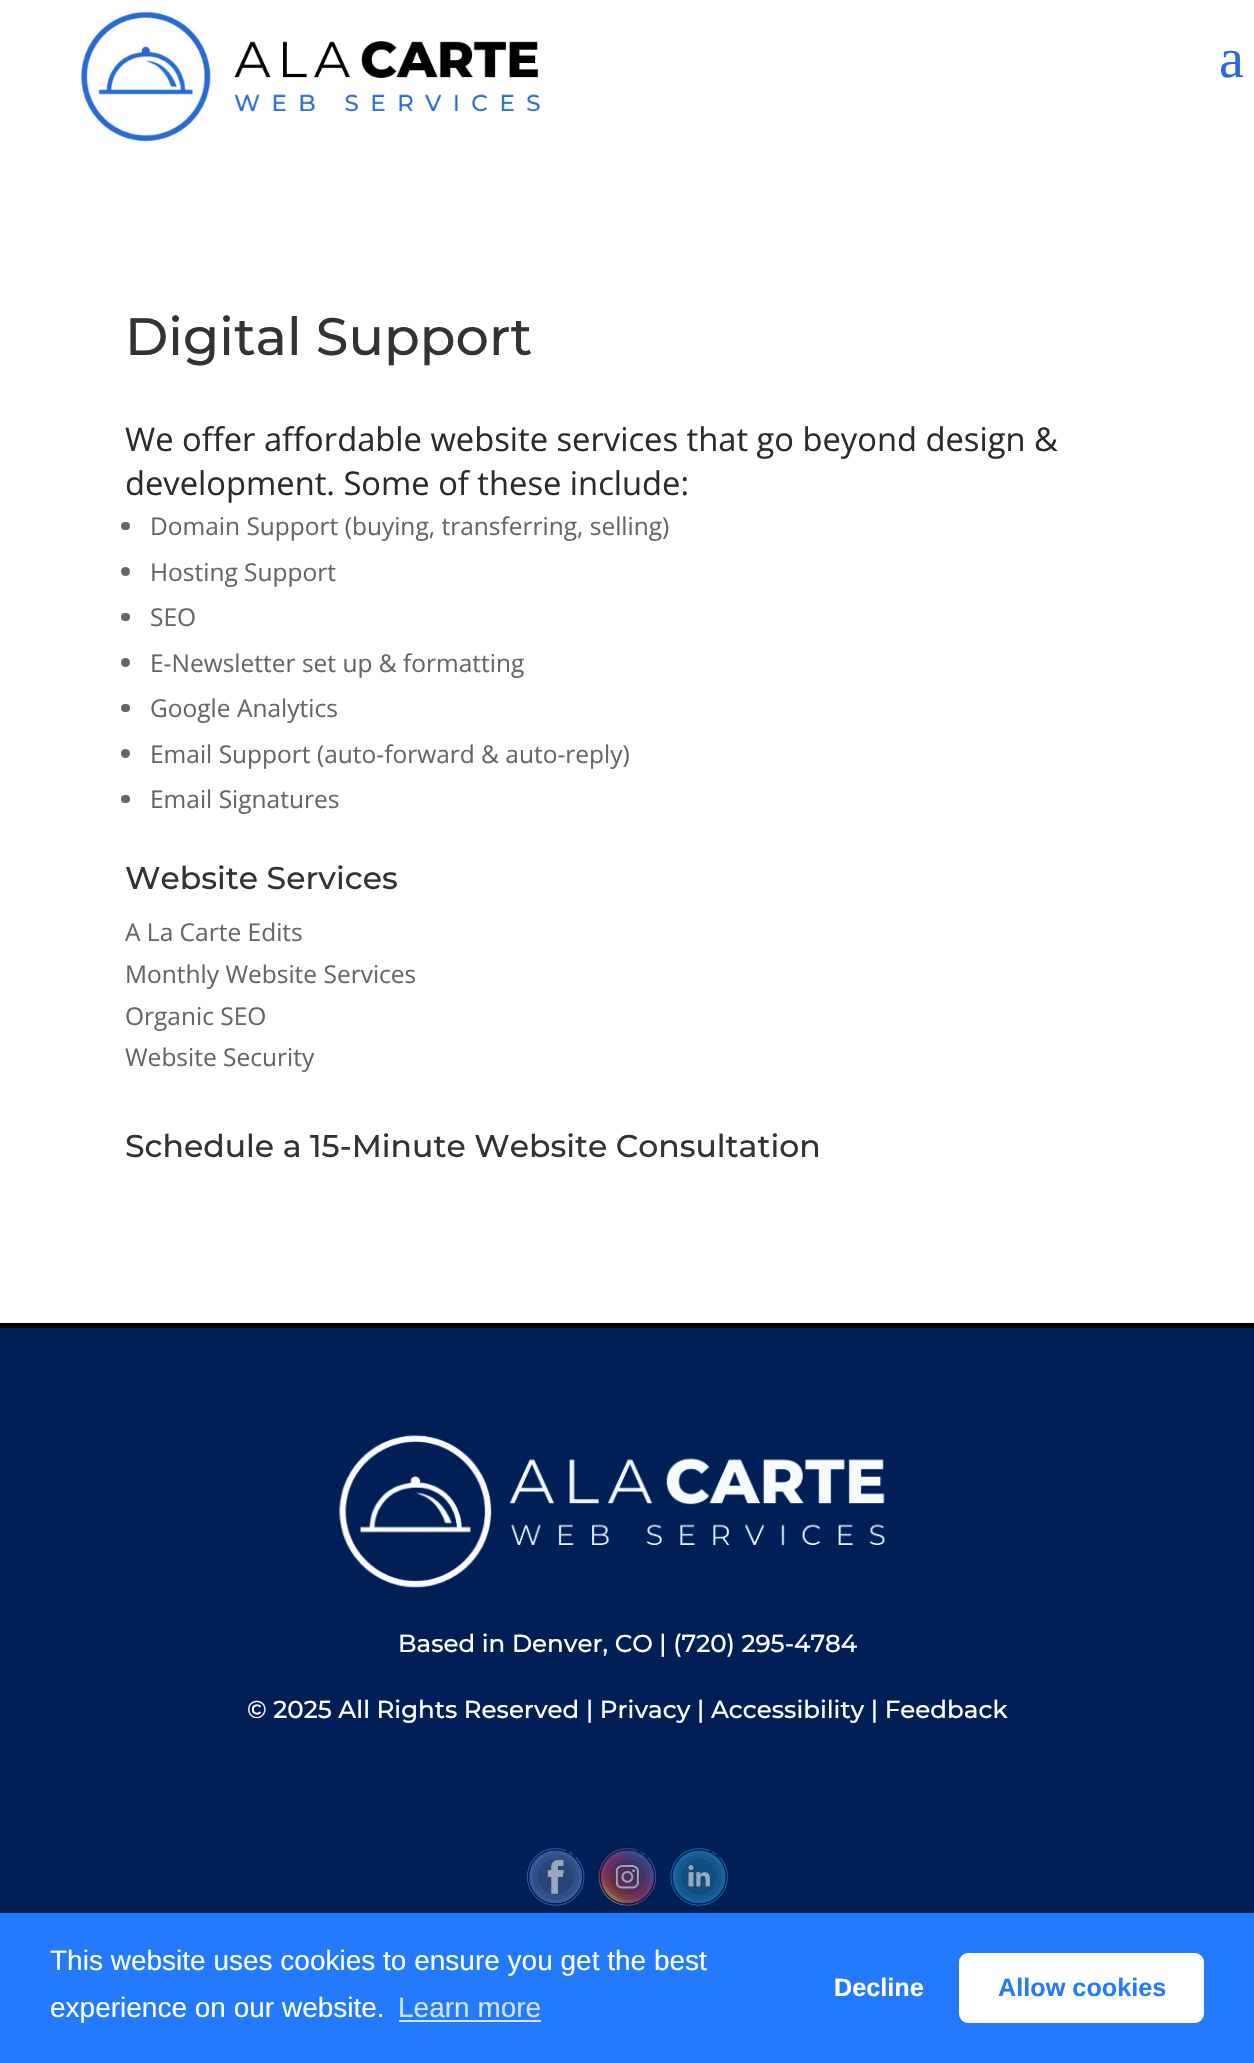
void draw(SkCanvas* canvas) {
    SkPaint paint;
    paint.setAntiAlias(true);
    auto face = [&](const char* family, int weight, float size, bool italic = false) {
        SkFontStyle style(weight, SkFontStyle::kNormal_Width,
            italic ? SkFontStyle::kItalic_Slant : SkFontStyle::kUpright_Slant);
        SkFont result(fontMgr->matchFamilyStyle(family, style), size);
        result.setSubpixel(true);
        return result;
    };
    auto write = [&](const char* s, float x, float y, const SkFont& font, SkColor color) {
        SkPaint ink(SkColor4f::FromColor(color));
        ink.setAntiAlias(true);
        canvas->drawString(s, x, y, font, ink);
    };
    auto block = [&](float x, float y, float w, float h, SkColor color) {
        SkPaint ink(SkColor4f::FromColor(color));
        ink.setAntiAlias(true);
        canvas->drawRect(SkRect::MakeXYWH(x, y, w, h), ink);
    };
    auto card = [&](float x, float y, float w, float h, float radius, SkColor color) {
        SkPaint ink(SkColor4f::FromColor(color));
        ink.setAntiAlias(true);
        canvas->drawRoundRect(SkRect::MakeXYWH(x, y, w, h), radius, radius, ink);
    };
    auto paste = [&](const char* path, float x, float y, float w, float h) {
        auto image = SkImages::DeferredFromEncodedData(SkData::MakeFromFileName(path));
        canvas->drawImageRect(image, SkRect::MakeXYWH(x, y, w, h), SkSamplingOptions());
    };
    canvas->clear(SK_ColorWHITE);
    paste("pic1.png", 80, 10, 460, 134);
    auto kFont1 = face("Liberation Serif", 400, 56);
    write("a", 1219, 77, kFont1, SkColorSetRGB(40, 107, 214));
    auto kFont2 = face("Montserrat", 500, 52.5f);
    write("Digital Support", 125, 355, kFont2, SkColorSetRGB(51, 51, 51));
    auto kFont3 = face("Open Sans", 400, 32.7f);
    write("We offer affordable website services that go beyond design &", 125, 451, kFont3, SkColorSetRGB(43, 43, 43));
    write("development. Some of these include:", 125, 495, kFont3, SkColorSetRGB(43, 43, 43));
    card(121, 522, 9, 8, 4, SkColorSetRGB(102, 102, 102));
    auto kFont4 = face("Open Sans", 400, 24.5f);
    write("Domain Support (buying, transferring, selling)", 150, 535, kFont4, SkColorSetRGB(102, 102, 102));
    paint.setColor(SkColorSetRGB(102, 102, 102));
    canvas->drawCircle(125.5f, 571.5f, 4.5f, paint);
    write("Hosting Support", 150, 581, kFont4, SkColorSetRGB(102, 102, 102));
    card(121, 613, 9, 8, 4, SkColorSetRGB(102, 102, 102));
    write("SEO", 150, 626, kFont4, SkColorSetRGB(102, 102, 102));
    canvas->drawCircle(125.5f, 662.5f, 4.5f, paint);
    write("E-Newsletter set up & formatting", 150, 672, kFont4, SkColorSetRGB(102, 102, 102));
    card(121, 704, 9, 8, 4, SkColorSetRGB(102, 102, 102));
    write("Google Analytics", 150, 717, kFont4, SkColorSetRGB(102, 102, 102));
    canvas->drawCircle(125.5f, 753.5f, 4.5f, paint);
    write("Email Support (auto-forward & auto-reply)", 150, 763, kFont4, SkColorSetRGB(102, 102, 102));
    card(121, 795, 9, 8, 4, SkColorSetRGB(102, 102, 102));
    write("Email Signatures", 150, 808, kFont4, SkColorSetRGB(102, 102, 102));
    auto kFont5 = face("Montserrat", 500, 31.5f);
    write("Website Services", 125, 889, kFont5, SkColorSetRGB(51, 51, 51));
    write("A La Carte Edits", 125, 941, kFont4, SkColorSetRGB(102, 102, 102));
    write("Monthly Website Services", 125, 983, kFont4, SkColorSetRGB(102, 102, 102));
    write("Organic SEO", 125, 1025, kFont4, SkColorSetRGB(102, 102, 102));
    write("Website Security", 125, 1066, kFont4, SkColorSetRGB(102, 102, 102));
    write("Schedule a 15-Minute Website Consultation", 125, 1157, kFont5, SkColorSetRGB(51, 51, 51));
    block(0, 1328, 1254, 585, SkColorSetRGB(0, 31, 86));
    block(0, 1323, 1254, 5, SK_ColorBLACK);
    paste("pic2.png", 339, 1435, 547, 153);
    auto kFont6 = face("Montserrat", 500, 24.5f);
    write("Based in Denver, CO | (720) 295-4784", 398, 1652, kFont6, SK_ColorWHITE);
    write("© 2025 All Rights Reserved | Privacy | Accessibility | Feedback", 247, 1718, kFont6, SK_ColorWHITE);
    paste("pic3.png", 527, 1848, 58, 58);
    paste("pic4.png", 598, 1848, 58, 58);
    paste("pic5.png", 670, 1848, 58, 58);
    block(0, 1913, 1254, 150, SkColorSetRGB(35, 122, 252));
    auto kFont7 = face("Liberation Sans", 400, 28);
    write("This website uses cookies to ensure you get the best", 50, 1970, kFont7, SK_ColorWHITE);
    write("experience on our website.", 50, 2017, kFont7, SK_ColorWHITE);
    write("Learn more", 398, 2017, kFont7, SkColorSetRGB(211, 228, 254));
    block(399, 2020, 142, 2, SkColorSetRGB(211, 228, 254));
    auto kFont8 = face("Liberation Sans", 700, 25.25f);
    write("Decline", 834, 1996, kFont8, SK_ColorWHITE);
    card(959, 1953, 245, 70, 9, SK_ColorWHITE);
    write("Allow cookies", 998, 1996, kFont8, SkColorSetRGB(35, 122, 252));
}
